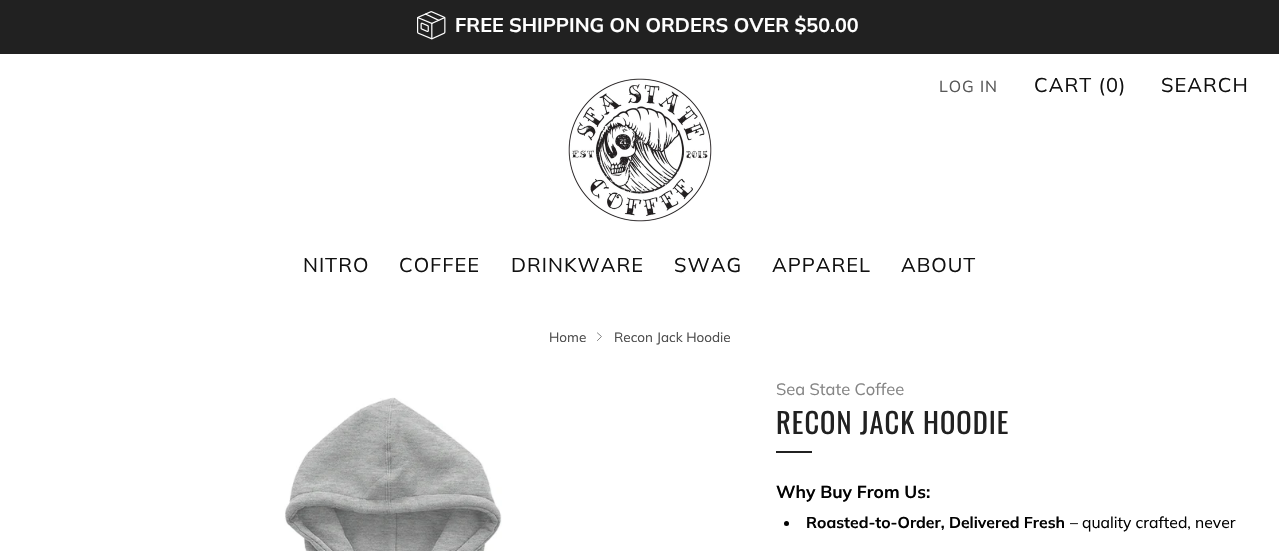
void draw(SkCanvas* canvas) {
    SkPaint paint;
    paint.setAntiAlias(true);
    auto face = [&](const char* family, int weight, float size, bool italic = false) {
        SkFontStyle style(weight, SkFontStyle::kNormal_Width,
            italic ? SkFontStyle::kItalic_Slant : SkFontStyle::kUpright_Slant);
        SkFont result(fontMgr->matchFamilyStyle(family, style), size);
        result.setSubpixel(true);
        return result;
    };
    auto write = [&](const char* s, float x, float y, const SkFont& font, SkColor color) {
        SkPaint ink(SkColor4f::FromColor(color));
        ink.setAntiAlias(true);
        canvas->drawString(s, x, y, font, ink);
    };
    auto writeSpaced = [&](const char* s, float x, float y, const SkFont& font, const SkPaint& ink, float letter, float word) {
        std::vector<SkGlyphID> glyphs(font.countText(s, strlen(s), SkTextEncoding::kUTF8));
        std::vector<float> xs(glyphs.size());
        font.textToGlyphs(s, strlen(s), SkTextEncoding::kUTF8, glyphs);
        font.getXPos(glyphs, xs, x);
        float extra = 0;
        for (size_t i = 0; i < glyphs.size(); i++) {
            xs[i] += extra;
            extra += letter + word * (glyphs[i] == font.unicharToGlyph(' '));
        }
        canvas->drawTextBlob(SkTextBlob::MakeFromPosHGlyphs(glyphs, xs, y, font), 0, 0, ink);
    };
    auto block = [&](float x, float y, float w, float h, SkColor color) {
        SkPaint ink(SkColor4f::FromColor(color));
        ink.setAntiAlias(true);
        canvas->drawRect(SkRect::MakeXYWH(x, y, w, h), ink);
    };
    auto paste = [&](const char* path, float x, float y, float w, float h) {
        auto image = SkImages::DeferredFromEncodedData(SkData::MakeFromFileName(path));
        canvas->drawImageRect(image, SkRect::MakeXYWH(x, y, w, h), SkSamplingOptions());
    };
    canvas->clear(SK_ColorWHITE);
    block(0, 0, 1279, 54, SkColorSetRGB(33, 33, 33));
    paste("pic1.png", 417, 11, 29, 29);
    auto kFont1 = face("Muli", 700, 19.75f);
    write("FREE SHIPPING ON ORDERS OVER $50.00", 455, 32, kFont1, SK_ColorWHITE);
    auto kFont2 = face("Muli", 400, 16);
    paint.setColor(SkColorSetRGB(88, 88, 88));
    writeSpaced("LOG IN", 939, 92, kFont2, paint, 1, 0);
    auto kFont3 = face("Muli", 400, 20);
    paint.setColor(SkColorSetRGB(17, 17, 17));
    writeSpaced("CART (0)", 1034, 92, kFont3, paint, 1, 0);
    writeSpaced("SEARCH", 1161, 92, kFont3, paint, 1, 0);
    writeSpaced("NITRO", 303, 272, kFont3, paint, 1, 0);
    writeSpaced("COFFEE", 399, 272, kFont3, paint, 1, 0);
    writeSpaced("DRINKWARE", 511, 272, kFont3, paint, 1, 0);
    writeSpaced("SWAG", 674, 272, kFont3, paint, 1, 0);
    writeSpaced("APPAREL", 772, 272, kFont3, paint, 1, 0);
    writeSpaced("ABOUT", 901, 272, kFont3, paint, 1, 0);
    paste("pic2.png", 568, 78, 144, 144);
    auto kFont4 = face("Muli", 400, 13.5f);
    write("Home", 549, 342, kFont4, SkColorSetRGB(77, 77, 77));
    paint.setStyle(SkPaint::kStroke_Style);
    paint.setStrokeWidth(1);
    paint.setStrokeCap(SkPaint::kSquare_Cap);
    paint.setColor(SkColorSetRGB(131, 131, 131));
    canvas->drawPath(SkPathBuilder().moveTo(597.5f, 333).lineTo(601.5f, 336.5f).lineTo(597.5f, 340.5f).detach(), paint);
    write("Recon Jack Hoodie", 614, 342, kFont4, SkColorSetRGB(77, 77, 77));
    paste("pic3.png", 284, 397, 218, 154);
    auto kFont5 = face("Muli", 400, 16.5f);
    write("Sea State Coffee", 776, 395, kFont5, SkColorSetRGB(133, 133, 133));
    auto kFont6 = face("Oswald", 400, 28.5f);
    paint.setStyle(SkPaint::kFill_Style);
    paint.setColor(SkColorSetRGB(33, 33, 33));
    writeSpaced("RECON JACK HOODIE", 776, 434, kFont6, paint, 1, 0);
    block(776, 451, 36, 2, SkColorSetRGB(33, 33, 33));
    auto kFont7 = face("Muli", 700, 17.4f);
    write("Why Buy From Us:", 776, 498, kFont7, SkColorSetRGB(2, 2, 2));
    paint.setColor(SkColorSetRGB(2, 2, 2));
    canvas->drawCircle(786.5f, 523.5f, 2.5f, paint);
    auto kFont8 = face("Muli", 700, 15.75f);
    write("Roasted-to-Order, Delivered Fresh", 806, 528, kFont8, SkColorSetRGB(2, 2, 2));
    auto kFont9 = face("Muli", 400, 15.75f);
    write("– quality crafted, never", 1070, 528, kFont9, SkColorSetRGB(2, 2, 2));
}
